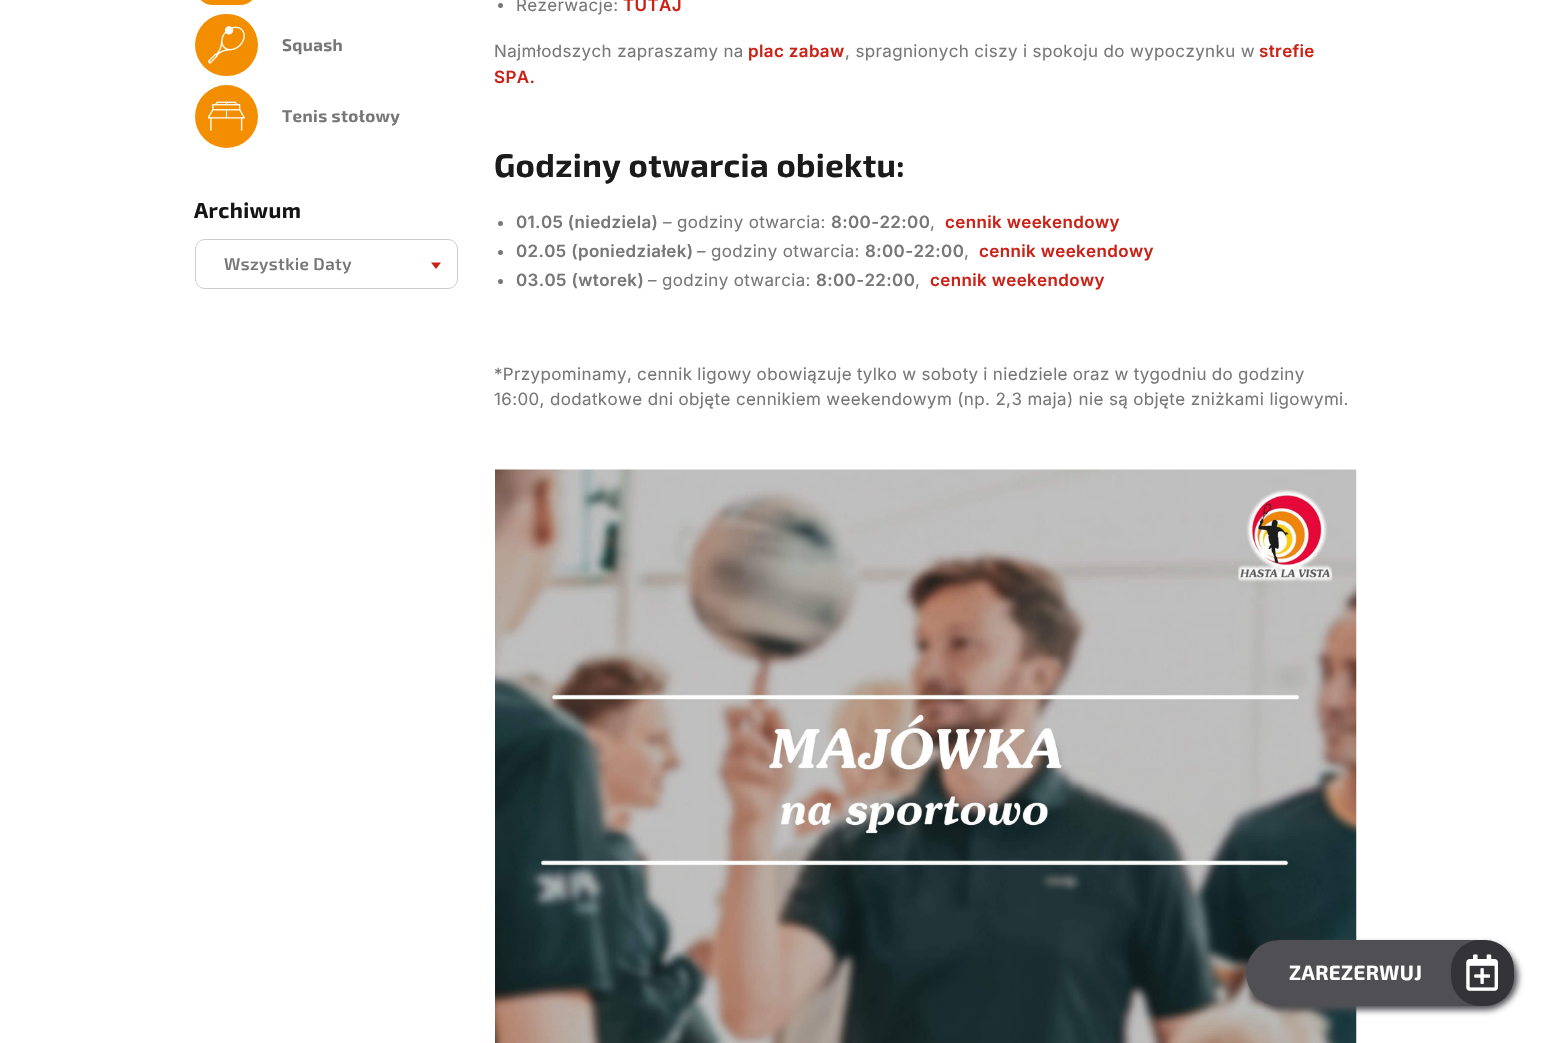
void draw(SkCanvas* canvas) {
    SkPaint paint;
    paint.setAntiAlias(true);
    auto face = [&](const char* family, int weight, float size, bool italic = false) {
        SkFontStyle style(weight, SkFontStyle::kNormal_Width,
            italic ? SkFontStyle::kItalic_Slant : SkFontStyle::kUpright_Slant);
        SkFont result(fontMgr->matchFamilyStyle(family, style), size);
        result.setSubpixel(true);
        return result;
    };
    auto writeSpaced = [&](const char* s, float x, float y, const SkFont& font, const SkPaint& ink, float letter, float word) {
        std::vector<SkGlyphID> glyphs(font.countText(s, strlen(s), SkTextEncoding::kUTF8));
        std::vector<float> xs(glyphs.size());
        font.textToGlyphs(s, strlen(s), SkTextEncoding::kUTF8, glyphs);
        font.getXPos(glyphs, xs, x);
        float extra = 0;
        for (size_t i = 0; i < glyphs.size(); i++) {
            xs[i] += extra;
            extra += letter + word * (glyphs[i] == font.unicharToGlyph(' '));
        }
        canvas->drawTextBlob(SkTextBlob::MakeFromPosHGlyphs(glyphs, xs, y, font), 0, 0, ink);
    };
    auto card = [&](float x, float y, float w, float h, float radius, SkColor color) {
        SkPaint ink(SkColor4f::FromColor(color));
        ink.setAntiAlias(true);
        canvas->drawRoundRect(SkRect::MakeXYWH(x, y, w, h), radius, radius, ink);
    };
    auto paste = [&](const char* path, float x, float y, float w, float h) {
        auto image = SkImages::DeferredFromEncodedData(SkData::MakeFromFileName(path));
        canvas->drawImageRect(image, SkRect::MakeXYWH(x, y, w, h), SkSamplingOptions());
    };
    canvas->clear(SK_ColorWHITE);
    card(195, -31, 63, 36, 31, SkColorSetRGB(242, 142, 0));
    card(195, 14, 63, 62, 31, SkColorSetRGB(242, 142, 0));
    paste("pic1.png", 208, 26, 37, 38);
    auto kFont1 = face("Exo 2", 700, 16.95f);
    paint.setColor(SkColorSetRGB(119, 119, 119));
    writeSpaced("Squash", 282, 51, kFont1, paint, 0.38f, 0);
    paint.setColor(SkColorSetRGB(242, 142, 0));
    canvas->drawCircle(226.5f, 116.5f, 31.5f, paint);
    paste("pic2.png", 208, 101, 37, 30);
    paint.setColor(SkColorSetRGB(119, 119, 119));
    writeSpaced("Tenis stołowy", 282, 122, kFont1, paint, 0.38f, 0);
    auto kFont2 = face("Exo 2", 700, 21.75f);
    paint.setColor(SkColorSetRGB(21, 21, 21));
    writeSpaced("Archiwum", 194, 218, kFont2, paint, 0.38f, 0);
    paint.setStyle(SkPaint::kStroke_Style);
    paint.setStrokeWidth(1);
    paint.setColor(SkColorSetRGB(204, 204, 204));
    canvas->drawRoundRect(SkRect::MakeXYWH(195.5f, 239.5f, 262, 49), 9.5f, 9.5f, paint);
    auto kFont3 = face("Exo 2", 600, 16.95f);
    paint.setStyle(SkPaint::kFill_Style);
    paint.setColor(SkColorSetRGB(119, 119, 119));
    writeSpaced("Wszystkie Daty", 224, 270, kFont3, paint, 0.38f, 0);
    paint.setColor(SkColorSetRGB(202, 34, 23));
    canvas->drawPath(SkPathBuilder().moveTo(431, 262.5f).lineTo(441, 262.5f).lineTo(436, 269).close().detach(), paint);
    paint.setColor(SkColorSetRGB(119, 119, 119));
    canvas->drawCircle(500.5f, 5.5f, 2.5f, paint);
    auto kFont4 = face("Inter", 400, 16.95f);
    writeSpaced("Rezerwacje:", 516, 11, kFont4, paint, 0.38f, 0);
    auto kFont5 = face("Inter", 600, 16.95f);
    paint.setColor(SkColorSetRGB(202, 34, 23));
    writeSpaced("TUTAJ", 623, 11, kFont5, paint, 0.38f, 0);
    paint.setColor(SkColorSetRGB(119, 119, 119));
    writeSpaced("Najmłodszych zapraszamy na", 494, 57, kFont4, paint, 0.38f, 0);
    paint.setColor(SkColorSetRGB(202, 34, 23));
    writeSpaced("plac zabaw", 748, 57, kFont5, paint, 0.38f, 0);
    paint.setColor(SkColorSetRGB(119, 119, 119));
    writeSpaced(", spragnionych ciszy i spokoju do wypoczynku w", 845, 57, kFont4, paint, 0.38f, 0);
    paint.setColor(SkColorSetRGB(202, 34, 23));
    writeSpaced("strefie", 1259, 57, kFont5, paint, 0.38f, 0);
    writeSpaced("SPA.", 494, 83, kFont5, paint, 0.38f, 0);
    auto kFont6 = face("Exo 2", 700, 32.7f);
    paint.setColor(SkColorSetRGB(27, 27, 27));
    writeSpaced("Godziny otwarcia obiektu:", 494, 177, kFont6, paint, 0.38f, 0);
    paint.setColor(SkColorSetRGB(119, 119, 119));
    canvas->drawCircle(500.5f, 223.5f, 2.5f, paint);
    writeSpaced("01.05 (niedziela)", 516, 228, kFont5, paint, 0.38f, 0);
    writeSpaced("– godziny otwarcia:", 663, 228, kFont4, paint, 0.38f, 0);
    writeSpaced("8:00-22:00", 831, 228, kFont5, paint, 0.38f, 0);
    paint.setColor(SkColorSetRGB(202, 34, 23));
    writeSpaced("cennik weekendowy", 945, 228, kFont5, paint, 0.38f, 0);
    paint.setColor(SkColorSetRGB(119, 119, 119));
    writeSpaced(",", 930, 228, kFont4, paint, 0.38f, 0);
    canvas->drawCircle(500.5f, 252.5f, 2.5f, paint);
    writeSpaced("02.05 (poniedziałek)", 516, 257, kFont5, paint, 0.38f, 0);
    writeSpaced("– godziny otwarcia:", 697, 257, kFont4, paint, 0.38f, 0);
    writeSpaced("8:00-22:00", 865, 257, kFont5, paint, 0.38f, 0);
    paint.setColor(SkColorSetRGB(202, 34, 23));
    writeSpaced("cennik weekendowy", 979, 257, kFont5, paint, 0.38f, 0);
    paint.setColor(SkColorSetRGB(119, 119, 119));
    writeSpaced(",", 964, 257, kFont4, paint, 0.38f, 0);
    canvas->drawCircle(500.5f, 281.5f, 2.5f, paint);
    writeSpaced("03.05 (wtorek)", 516, 286, kFont5, paint, 0.38f, 0);
    writeSpaced("– godziny otwarcia:", 648, 286, kFont4, paint, 0.38f, 0);
    writeSpaced("8:00-22:00", 816, 286, kFont5, paint, 0.38f, 0);
    paint.setColor(SkColorSetRGB(202, 34, 23));
    writeSpaced("cennik weekendowy", 930, 286, kFont5, paint, 0.38f, 0);
    paint.setColor(SkColorSetRGB(119, 119, 119));
    writeSpaced(",", 915, 286, kFont4, paint, 0.38f, 0);
    writeSpaced("*Przypominamy, cennik ligowy obowiązuje tylko w soboty i niedziele oraz w tygodniu do godziny", 494, 380, kFont4, paint, 0.38f, -0.25f);
    writeSpaced("16:00, dodatkowe dni objęte cennikiem weekendowym (np. 2,3 maja) nie są objęte zniżkami ligowymi.", 494, 405, kFont4, paint, 0.38f, 0);
    paste("pic3.png", 495, 469, 862, 574);
    paint.setColor(SkColorSetRGB(80, 79, 84));
    paint.setMaskFilter(SkMaskFilter::MakeBlur(kNormal_SkBlurStyle, 3));
    canvas->drawRoundRect(SkRect::MakeXYWH(1250, 944, 268, 66), 33, 33, paint);
    paint.setMaskFilter(nullptr);
    card(1246, 940, 268, 66, 33, SkColorSetRGB(80, 79, 84));
    auto kFont7 = face("Exo 2", 700, 20.5f);
    paint.setColor(SK_ColorWHITE);
    writeSpaced("ZAREZERWUJ", 1289, 980, kFont7, paint, 0.38f, 0);
    card(1451, 940, 63, 66, 29, SkColorSetRGB(52, 52, 56));
    paste("pic4.png", 1466, 954, 32, 37);
}
